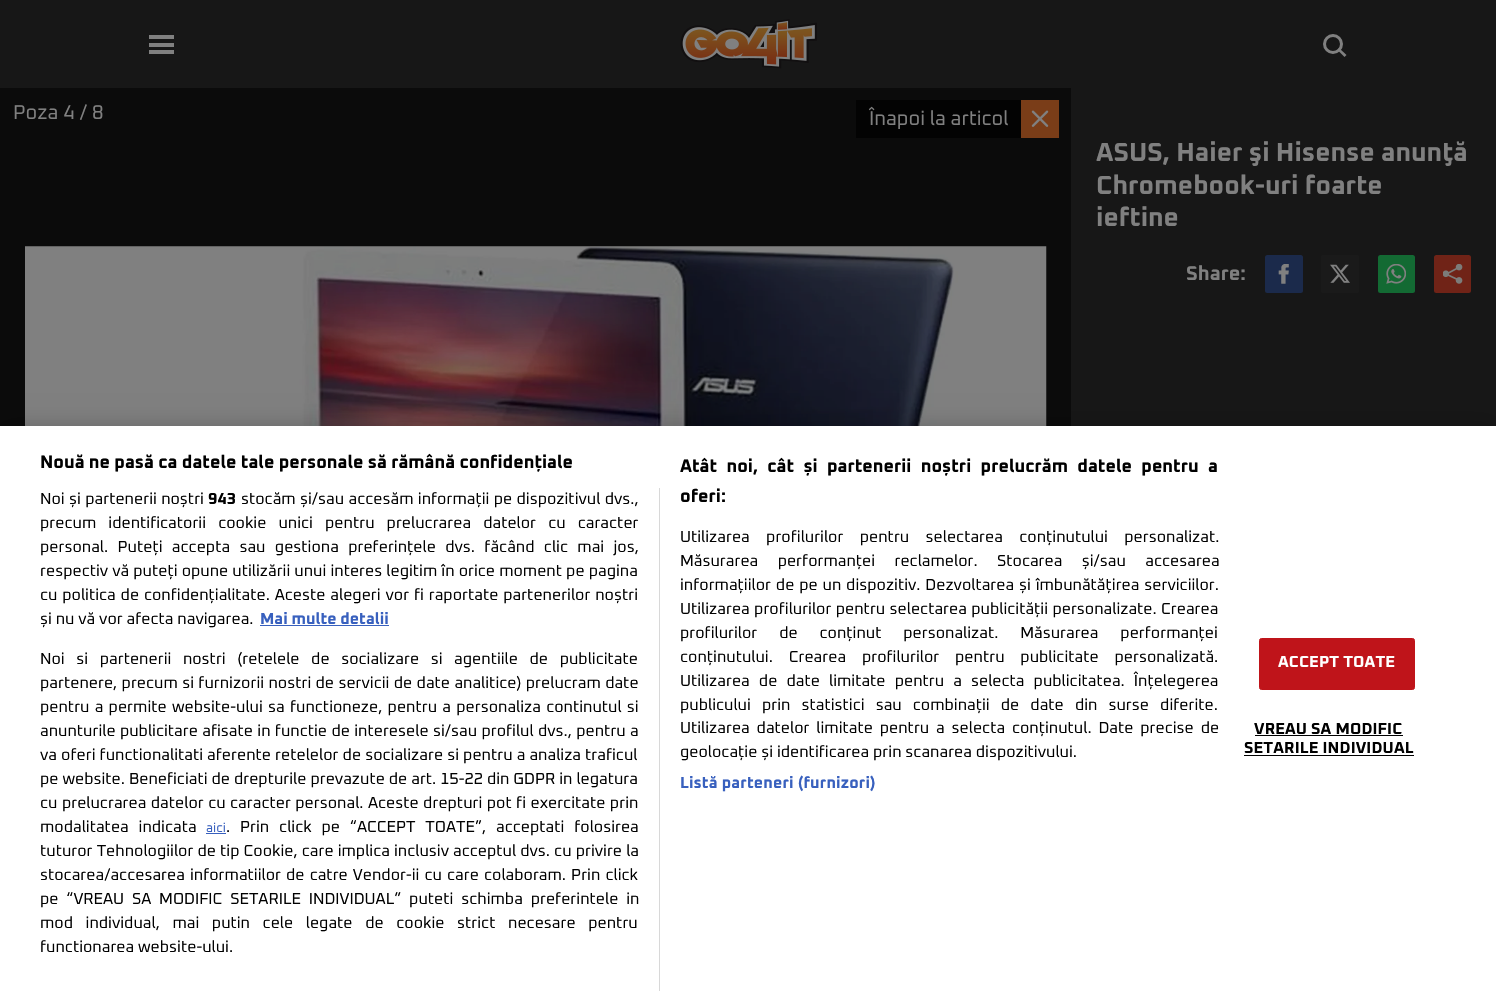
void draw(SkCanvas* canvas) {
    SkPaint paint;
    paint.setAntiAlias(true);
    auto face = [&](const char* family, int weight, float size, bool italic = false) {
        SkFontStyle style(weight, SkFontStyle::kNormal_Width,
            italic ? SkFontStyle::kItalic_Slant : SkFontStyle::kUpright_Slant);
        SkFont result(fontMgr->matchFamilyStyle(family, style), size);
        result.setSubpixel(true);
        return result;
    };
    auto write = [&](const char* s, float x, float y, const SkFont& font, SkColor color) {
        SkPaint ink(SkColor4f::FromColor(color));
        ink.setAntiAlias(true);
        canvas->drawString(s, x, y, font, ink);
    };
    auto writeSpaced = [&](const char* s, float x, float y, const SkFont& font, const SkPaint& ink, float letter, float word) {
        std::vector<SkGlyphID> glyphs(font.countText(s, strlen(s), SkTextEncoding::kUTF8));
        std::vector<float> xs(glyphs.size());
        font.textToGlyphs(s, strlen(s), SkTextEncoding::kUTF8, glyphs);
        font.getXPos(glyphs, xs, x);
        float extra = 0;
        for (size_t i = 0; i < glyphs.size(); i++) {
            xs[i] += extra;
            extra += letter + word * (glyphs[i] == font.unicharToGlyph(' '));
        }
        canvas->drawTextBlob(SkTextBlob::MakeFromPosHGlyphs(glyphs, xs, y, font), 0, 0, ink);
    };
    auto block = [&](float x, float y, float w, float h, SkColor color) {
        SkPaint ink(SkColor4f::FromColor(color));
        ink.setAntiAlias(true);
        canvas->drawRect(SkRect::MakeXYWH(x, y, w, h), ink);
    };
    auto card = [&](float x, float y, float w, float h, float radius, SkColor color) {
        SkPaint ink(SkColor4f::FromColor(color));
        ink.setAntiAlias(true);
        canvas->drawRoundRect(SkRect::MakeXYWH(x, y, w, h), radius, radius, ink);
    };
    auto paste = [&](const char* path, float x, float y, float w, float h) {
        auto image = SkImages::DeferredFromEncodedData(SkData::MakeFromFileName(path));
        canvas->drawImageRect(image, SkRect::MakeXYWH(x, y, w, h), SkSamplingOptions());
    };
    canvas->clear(SkColorSetRGB(23, 23, 23));
    block(149, 43, 25, 4, SkColorSetRGB(128, 128, 128));
    block(149, 35, 25, 4, SkColorSetRGB(128, 128, 128));
    block(149, 50, 25, 4, SkColorSetRGB(128, 128, 128));
    paste("pic1.png", 680, 19, 137, 50);
    paint.setStyle(SkPaint::kStroke_Style);
    paint.setStrokeWidth(3);
    paint.setColor(SkColorSetRGB(128, 128, 128));
    canvas->drawCircle(1333, 44, 8.5f, paint);
    paint.setStyle(SkPaint::kFill_Style);
    canvas->drawPath(SkPathBuilder().moveTo(1337.5f, 50).lineTo(1339, 48).lineTo(1346.5f, 55).lineTo(1344.5f, 57).close().detach(), paint);
    block(0, 88, 1071, 338, SkColorSetRGB(11, 11, 11));
    auto kFont1 = face("Oxanium", 400, 20);
    write("Poza 4 / 8", 13, 119, kFont1, SkColorSetRGB(128, 128, 128));
    block(856, 100, 165, 38, SkColorSetRGB(3, 3, 3));
    write("Înapoi la articol", 869, 125, kFont1, SkColorSetRGB(128, 128, 128));
    block(1021, 100, 38, 38, SkColorSetRGB(122, 61, 24));
    paste("pic2.png", 1031, 110, 18, 17);
    paste("pic3.png", 25, 246, 1022, 180);
    auto kFont2 = face("Oxanium", 700, 26.25f);
    write("ASUS, Haier şi Hisense anunţă", 1096, 161, kFont2, SkColorSetRGB(128, 128, 128));
    write("Chromebook-uri foarte", 1096, 194, kFont2, SkColorSetRGB(128, 128, 128));
    write("ieftine", 1096, 226, kFont2, SkColorSetRGB(128, 128, 128));
    auto kFont3 = face("Oxanium", 700, 20);
    write("Share:", 1186, 280, kFont3, SkColorSetRGB(128, 128, 128));
    card(1265, 255, 38, 38, 2.5f, SkColorSetRGB(27, 42, 75));
    paste("pic4.png", 1278, 264, 11, 20);
    card(1321, 255, 38, 38, 2.5f, SkColorSetRGB(26, 26, 26));
    paste("pic5.png", 1330, 264, 20, 19);
    card(1378, 255, 37, 38, 2.5f, SkColorSetRGB(19, 106, 51));
    paste("pic6.png", 1386, 264, 20, 20);
    card(1434, 255, 37, 38, 2.5f, SkColorSetRGB(112, 35, 23));
    paste("pic7.png", 1443, 264, 20, 20);
    paint.setColor(SkColorSetARGB(51, 0, 0, 0));
    paint.setMaskFilter(SkMaskFilter::MakeBlur(kNormal_SkBlurStyle, 11));
    canvas->drawRect(SkRect::MakeXYWH(0, 426, 1496, 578), paint);
    paint.setMaskFilter(nullptr);
    block(0, 426, 1496, 577, SK_ColorWHITE);
    auto kFont4 = face("Oxanium", 700, 18);
    write("Nouă ne pasă ca datele tale personale să rămână confidențiale", 40, 468, kFont4, SK_ColorBLACK);
    paint.setColor(SK_ColorBLACK);
    writeSpaced("Atât noi, cât și partenerii noștri prelucrăm datele pentru a", 680, 472, kFont4, paint, 0, 5);
    write("oferi:", 680, 502, kFont4, SK_ColorBLACK);
    auto kFont5 = face("Oxanium", 400, 16);
    writeSpaced("Utilizarea profilurilor pentru selectarea conținutului personalizat.", 680, 542, kFont5, paint, 0, 12.5f);
    writeSpaced("Măsurarea performanței reclamelor. Stocarea și/sau accesarea", 680, 566, kFont5, paint, 0, 15.5f);
    writeSpaced("informațiilor de pe un dispozitiv. Dezvoltarea și îmbunătățirea serviciilor.", 680, 590, kFont5, paint, 0, 1);
    writeSpaced("Utilizarea profilurilor pentru selectarea publicității personalizate. Crearea", 680, 614, kFont5, paint, 0, 0.5f);
    writeSpaced("profilurilor de conținut personalizat. Măsurarea performanței", 680, 638, kFont5, paint, 0, 18);
    writeSpaced("conținutului. Crearea profilurilor pentru publicitate personalizată.", 680, 662, kFont5, paint, 0, 12);
    writeSpaced("Utilizarea de date limitate pentru a selecta publicitatea. Înțelegerea", 680, 686, kFont5, paint, 0, 5.25f);
    writeSpaced("publicului prin statistici sau combinații de date din surse diferite.", 680, 710, kFont5, paint, 0, 7.25f);
    writeSpaced("Utilizarea datelor limitate pentru a selecta conținutul. Date precise de", 680, 733, kFont5, paint, 0, 3);
    write("geolocație și identificarea prin scanarea dispozitivului.", 680, 757, kFont5, SK_ColorBLACK);
    auto kFont6 = face("Oxanium", 700, 16);
    paint.setColor(SkColorSetRGB(56, 96, 190));
    writeSpaced("Listă parteneri (furnizori)", 680, 788, kFont6, paint, 0.15f, 0);
    block(659, 488, 1, 503, SkColorSetRGB(216, 216, 216));
    paint.setColor(SK_ColorBLACK);
    writeSpaced("Noi și partenerii noștri", 40, 504, kFont5, paint, 0, 0.5f);
    write("943", 208, 504, kFont6, SK_ColorBLACK);
    writeSpaced("stocăm și/sau accesăm informații pe dispozitivul dvs.,", 241, 504, kFont5, paint, 0, 0.5f);
    writeSpaced("precum identificatorii cookie unici pentru prelucrarea datelor cu caracter", 40, 528, kFont5, paint, 0, 8.25f);
    writeSpaced("personal. Puteți accepta sau gestiona preferințele dvs. făcând clic mai jos,", 40, 552, kFont5, paint, 0, 5.5f);
    writeSpaced("respectiv vă puteți opune utilizării unui interes legitim în orice moment pe pagina", 40, 576, kFont5, paint, 0, 0.25f);
    writeSpaced("cu politica de confidențialitate. Aceste alegeri vor fi raportate partenerilor noștri", 40, 600, kFont5, paint, 0, 1);
    write("și nu vă vor afecta navigarea.", 40, 624, kFont5, SK_ColorBLACK);
    write("Mai multe detalii", 260, 624, kFont6, SkColorSetRGB(56, 96, 190));
    block(260, 625, 129, 1, SkColorSetRGB(56, 96, 190));
    writeSpaced("Noi si partenerii nostri (retelele de socializare si agentiile de publicitate", 40, 664, kFont5, paint, 0, 7.75f);
    writeSpaced("partenere, precum si furnizorii nostri de servicii de date analitice) prelucram date", 40, 688, kFont5, paint, 0, 0.5f);
    writeSpaced("pentru a permite website-ului sa functioneze, pentru a personaliza continutul si", 40, 712, kFont5, paint, 0, 1.4f);
    writeSpaced("anunturile publicitare afisate in functie de interesele si/sau profilul dvs., pentru a", 40, 736, kFont5, paint, 0, 0.5f);
    writeSpaced("va oferi functionalitati aferente retelelor de socializare si pentru a analiza traficul", 40, 760, kFont5, paint, 0, 0.25f);
    writeSpaced("pe website. Beneficiati de drepturile prevazute de art. 15-22 din GDPR in legatura", 40, 784, kFont5, paint, 0, 0.1f);
    writeSpaced("cu prelucrarea datelor cu caracter personal. Aceste drepturi pot fi exercitate prin", 40, 808, kFont5, paint, 0, 0.6f);
    writeSpaced("modalitatea indicata", 40, 832, kFont5, paint, 0, 6);
    auto kFont7 = face("Oxanium", 400, 13);
    write("aici", 206, 832, kFont7, SkColorSetRGB(56, 96, 190));
    block(206, 833, 20, 1, SkColorSetRGB(56, 96, 190));
    writeSpaced(". Prin click pe “ACCEPT TOATE”, acceptati folosirea", 226, 832, kFont5, paint, 0, 6);
    writeSpaced("tuturor Tehnologiilor de tip Cookie, care implica inclusiv acceptul dvs. cu privire la", 40, 856, kFont5, paint, 0, 0.25f);
    writeSpaced("stocarea/accesarea informatiilor de catre Vendor-ii cu care colaboram. Prin click", 40, 880, kFont5, paint, 0, 1.25f);
    writeSpaced("pe “VREAU SA MODIFIC SETARILE INDIVIDUAL” puteti schimba preferintele in", 40, 904, kFont5, paint, 0, 4);
    writeSpaced("mod individual, mai putin cele legate de cookie strict necesare pentru", 40, 928, kFont5, paint, 0, 8.75f);
    write("functionarea website-ului.", 40, 952, kFont5, SK_ColorBLACK);
    paint.setColor(SkColorSetRGB(191, 20, 26));
    canvas->drawRoundRect(SkRect::MakeXYWH(1259.5f, 638.5f, 155, 51), 2, 2, paint);
    paint.setStyle(SkPaint::kStroke_Style);
    paint.setStrokeWidth(1);
    canvas->drawRoundRect(SkRect::MakeXYWH(1259.5f, 638.5f, 155, 51), 2, 2, paint);
    paint.setStyle(SkPaint::kFill_Style);
    paint.setColor(SK_ColorWHITE);
    writeSpaced("ACCEPT TOATE", 1278, 667, kFont6, paint, 0.15f, 0);
    paint.setColor(SK_ColorBLACK);
    writeSpaced("VREAU SA MODIFIC", 1254, 734, kFont6, paint, 0.15f, 0);
    block(1255, 735, 148, 1, SK_ColorBLACK);
    writeSpaced("SETARILE INDIVIDUAL", 1244, 753, kFont6, paint, 0.15f, 0);
    block(1244, 755, 170, 1, SK_ColorBLACK);
}
